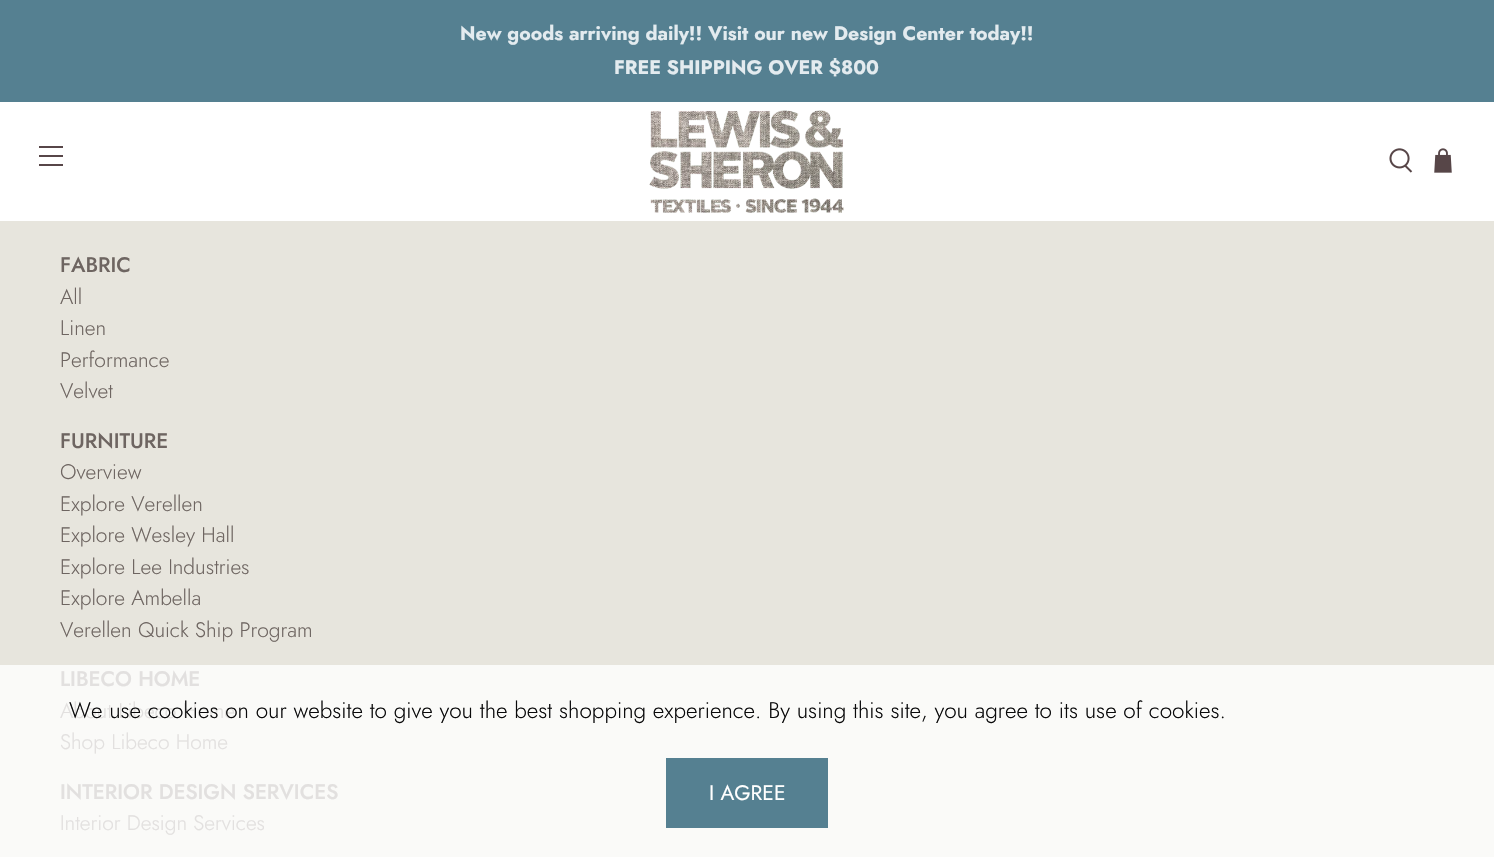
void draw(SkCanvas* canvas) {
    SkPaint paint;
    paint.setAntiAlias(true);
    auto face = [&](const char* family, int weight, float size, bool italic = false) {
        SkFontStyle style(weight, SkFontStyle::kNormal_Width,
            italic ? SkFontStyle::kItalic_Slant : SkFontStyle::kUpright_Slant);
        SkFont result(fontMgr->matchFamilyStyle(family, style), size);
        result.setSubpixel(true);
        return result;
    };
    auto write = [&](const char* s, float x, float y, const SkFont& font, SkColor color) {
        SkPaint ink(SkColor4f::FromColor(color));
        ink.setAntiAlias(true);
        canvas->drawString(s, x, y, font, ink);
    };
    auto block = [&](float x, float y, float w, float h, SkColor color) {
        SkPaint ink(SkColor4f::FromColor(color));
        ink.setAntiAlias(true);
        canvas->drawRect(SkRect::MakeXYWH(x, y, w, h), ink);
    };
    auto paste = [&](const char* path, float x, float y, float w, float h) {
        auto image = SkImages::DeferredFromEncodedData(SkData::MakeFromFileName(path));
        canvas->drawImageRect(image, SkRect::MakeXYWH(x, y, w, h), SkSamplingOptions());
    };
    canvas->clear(SK_ColorWHITE);
    block(0, 0, 1494, 102, SkColorSetRGB(85, 128, 145));
    auto kFont1 = face("Jost", 700, 19.5f);
    write("New goods arriving daily!! Visit our new Design Center today!!", 460, 40, kFont1, SkColorSetRGB(227, 235, 239));
    write("FREE SHIPPING OVER $800", 614, 74, kFont1, SkColorSetRGB(227, 235, 239));
    block(39, 146, 24, 2, SkColorSetRGB(87, 70, 72));
    block(39, 155, 24, 2, SkColorSetRGB(87, 70, 72));
    block(39, 164, 24, 2, SkColorSetRGB(87, 70, 72));
    paste("pic1.png", 649, 110, 195, 103);
    paste("pic2.png", 1389, 148, 24, 25);
    paste("pic3.png", 1434, 148, 18, 25);
    block(0, 221, 1494, 444, SkColorSetRGB(231, 229, 221));
    block(0, 665, 1494, 192, SkColorSetRGB(250, 250, 248));
    auto kFont2 = face("Jost", 500, 21);
    write("FABRIC", 60, 272, kFont2, SkColorSetRGB(110, 101, 97));
    auto kFont3 = face("Jost", 300, 21);
    write("All", 60, 304, kFont3, SkColorSetRGB(110, 101, 97));
    write("Linen", 60, 335, kFont3, SkColorSetRGB(110, 101, 97));
    write("Performance", 60, 367, kFont3, SkColorSetRGB(110, 101, 97));
    write("Velvet", 60, 398, kFont3, SkColorSetRGB(110, 101, 97));
    write("FURNITURE", 60, 448, kFont2, SkColorSetRGB(110, 101, 97));
    write("Overview", 60, 479, kFont3, SkColorSetRGB(110, 101, 97));
    write("Explore Verellen", 60, 511, kFont3, SkColorSetRGB(110, 101, 97));
    write("Explore Wesley Hall", 60, 542, kFont3, SkColorSetRGB(110, 101, 97));
    write("Explore Lee Industries", 60, 574, kFont3, SkColorSetRGB(110, 101, 97));
    write("Explore Ambella", 60, 605, kFont3, SkColorSetRGB(110, 101, 97));
    write("Verellen Quick Ship Program", 60, 637, kFont3, SkColorSetRGB(110, 101, 97));
    write("LIBECO HOME", 60, 686, kFont2, SkColorSetRGB(226, 224, 223));
    write("About Libeco Home", 60, 718, kFont3, SkColorSetRGB(226, 224, 223));
    write("Shop Libeco Home", 60, 749, kFont3, SkColorSetRGB(226, 224, 223));
    write("INTERIOR DESIGN SERVICES", 60, 799, kFont2, SkColorSetRGB(226, 224, 223));
    write("Interior Design Services", 60, 830, kFont3, SkColorSetRGB(226, 224, 223));
    auto kFont4 = face("Jost", 300, 22.5f);
    write("We use cookies on our website to give you the best shopping experience. By using this site, you agree to its use of cookies.", 69, 718, kFont4, SkColorSetRGB(10, 10, 11));
    block(666, 758, 162, 70, SkColorSetRGB(85, 128, 145));
    auto kFont5 = face("Jost", 400, 21);
    write("I AGREE", 709, 800, kFont5, SK_ColorWHITE);
}
